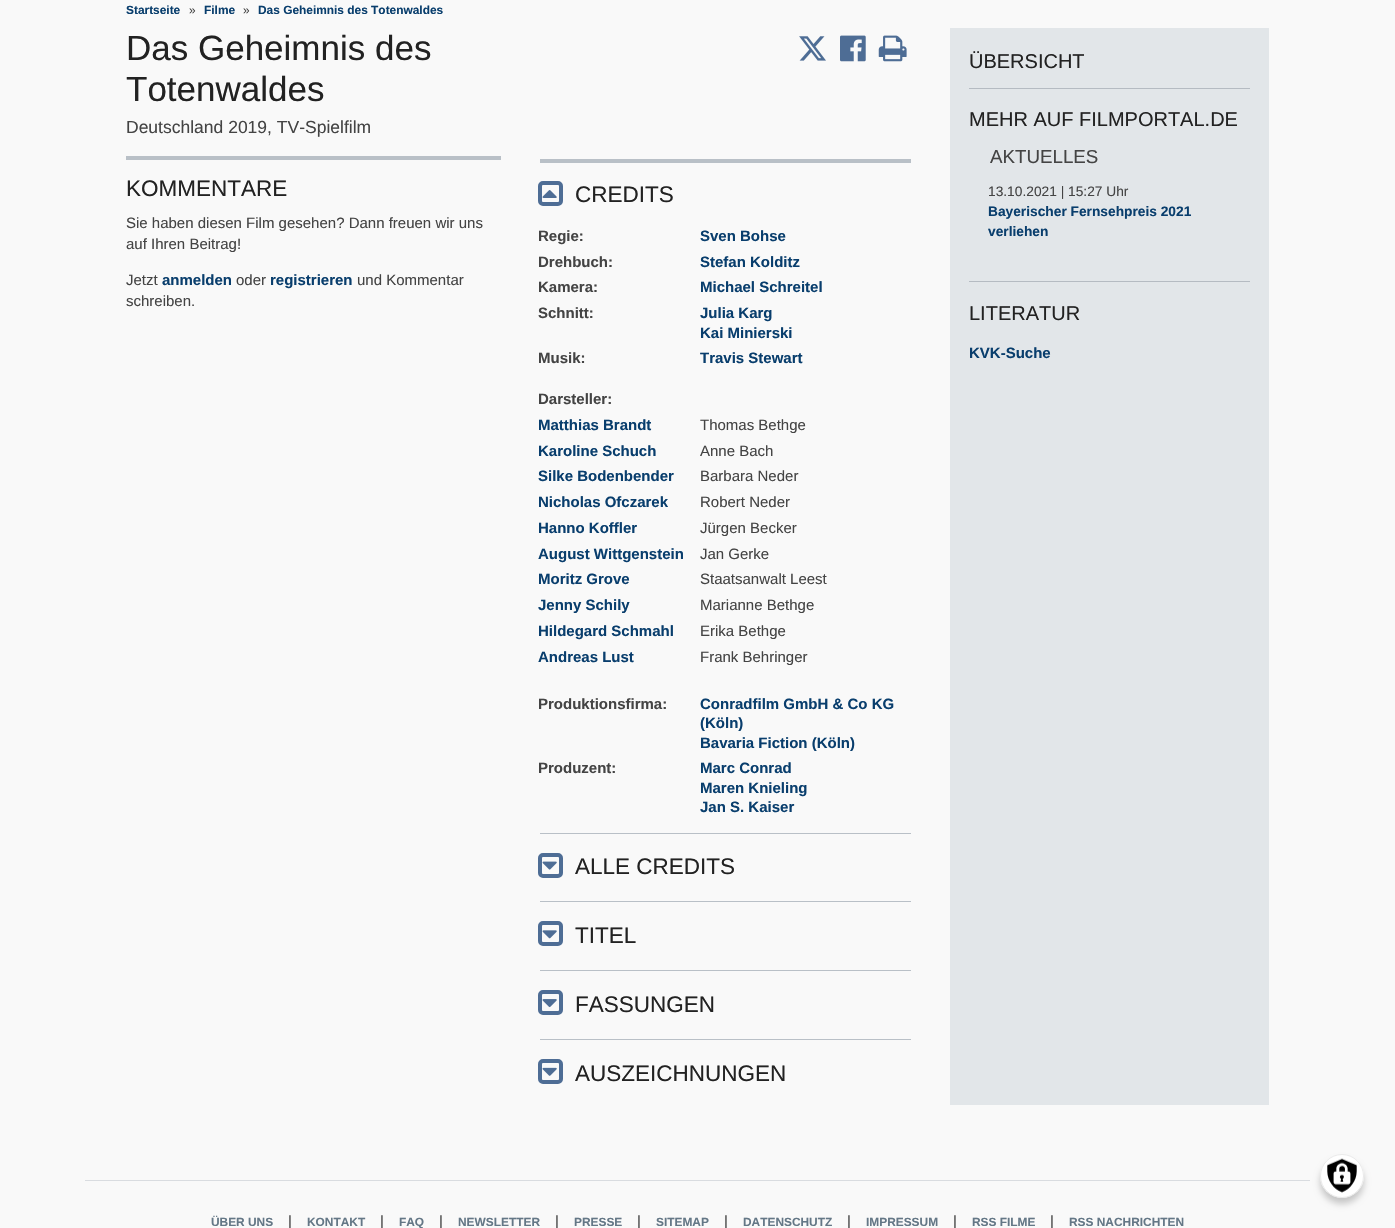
void draw(SkCanvas* canvas) {
    SkPaint paint;
    paint.setAntiAlias(true);
    auto face = [&](const char* family, int weight, float size, bool italic = false) {
        SkFontStyle style(weight, SkFontStyle::kNormal_Width,
            italic ? SkFontStyle::kItalic_Slant : SkFontStyle::kUpright_Slant);
        SkFont result(fontMgr->matchFamilyStyle(family, style), size);
        result.setSubpixel(true);
        return result;
    };
    auto write = [&](const char* s, float x, float y, const SkFont& font, SkColor color) {
        SkPaint ink(SkColor4f::FromColor(color));
        ink.setAntiAlias(true);
        canvas->drawString(s, x, y, font, ink);
    };
    auto block = [&](float x, float y, float w, float h, SkColor color) {
        SkPaint ink(SkColor4f::FromColor(color));
        ink.setAntiAlias(true);
        canvas->drawRect(SkRect::MakeXYWH(x, y, w, h), ink);
    };
    auto paste = [&](const char* path, float x, float y, float w, float h) {
        auto image = SkImages::DeferredFromEncodedData(SkData::MakeFromFileName(path));
        canvas->drawImageRect(image, SkRect::MakeXYWH(x, y, w, h), SkSamplingOptions());
    };
    canvas->clear(SkColorSetRGB(249, 249, 249));
    auto kFont1 = face("Liberation Sans", 700, 11.9f);
    write("Startseite", 126, 14, kFont1, SkColorSetRGB(9, 62, 109));
    auto kFont2 = face("Liberation Sans", 400, 11.9f);
    write("»", 189, 14, kFont2, SkColorSetRGB(68, 68, 68));
    write("Filme", 204, 14, kFont1, SkColorSetRGB(9, 62, 109));
    write("»", 243, 14, kFont2, SkColorSetRGB(68, 68, 68));
    write("Das Geheimnis des Totenwaldes", 258, 14, kFont1, SkColorSetRGB(9, 62, 109));
    auto kFont3 = face("Liberation Sans", 400, 35);
    write("Das Geheimnis des", 126, 60, kFont3, SkColorSetRGB(34, 34, 34));
    write("Totenwaldes", 126, 101, kFont3, SkColorSetRGB(34, 34, 34));
    paste("pic1.png", 799, 36, 27, 25);
    paste("pic2.png", 840, 35, 26, 27);
    paste("pic3.png", 878, 35, 29, 27);
    auto kFont4 = face("Liberation Sans", 400, 17.5f);
    write("Deutschland 2019, TV-Spielfilm", 126, 133, kFont4, SkColorSetRGB(68, 68, 68));
    block(126, 156, 375, 4, SkColorSetRGB(185, 192, 199));
    auto kFont5 = face("Liberation Sans", 400, 22.5f);
    write("KOMMENTARE", 126, 196, kFont5, SkColorSetRGB(34, 34, 34));
    auto kFont6 = face("Liberation Sans", 400, 15);
    write("Sie haben diesen Film gesehen? Dann freuen wir uns", 126, 228, kFont6, SkColorSetRGB(68, 68, 68));
    write("auf Ihren Beitrag!", 126, 249, kFont6, SkColorSetRGB(68, 68, 68));
    write("Jetzt", 126, 285, kFont6, SkColorSetRGB(68, 68, 68));
    auto kFont7 = face("Liberation Sans", 700, 15);
    write("anmelden", 162, 285, kFont7, SkColorSetRGB(9, 62, 109));
    write("oder", 236, 285, kFont6, SkColorSetRGB(68, 68, 68));
    write("registrieren", 270, 285, kFont7, SkColorSetRGB(9, 62, 109));
    write("und Kommentar", 357, 285, kFont6, SkColorSetRGB(68, 68, 68));
    write("schreiben.", 126, 306, kFont6, SkColorSetRGB(68, 68, 68));
    block(540, 159, 371, 4, SkColorSetRGB(185, 192, 199));
    paint.setStyle(SkPaint::kStroke_Style);
    paint.setStrokeWidth(4);
    paint.setColor(SkColorSetRGB(78, 109, 149));
    canvas->drawRoundRect(SkRect::MakeXYWH(540, 183, 21, 21), 3, 3, paint);
    paste("pic4.png", 542, 190, 15, 8);
    write("CREDITS", 575, 202, kFont5, SkColorSetRGB(34, 34, 34));
    write("Regie:", 538, 241, kFont7, SkColorSetRGB(68, 68, 68));
    write("Sven Bohse", 700, 241, kFont7, SkColorSetRGB(9, 62, 109));
    write("Drehbuch:", 538, 267, kFont7, SkColorSetRGB(68, 68, 68));
    write("Stefan Kolditz", 700, 267, kFont7, SkColorSetRGB(9, 62, 109));
    write("Kamera:", 538, 292, kFont7, SkColorSetRGB(68, 68, 68));
    write("Michael Schreitel", 700, 292, kFont7, SkColorSetRGB(9, 62, 109));
    write("Schnitt:", 538, 318, kFont7, SkColorSetRGB(68, 68, 68));
    write("Julia Karg", 700, 318, kFont7, SkColorSetRGB(9, 62, 109));
    write("Kai Minierski", 700, 338, kFont7, SkColorSetRGB(9, 62, 109));
    write("Musik:", 538, 363, kFont7, SkColorSetRGB(68, 68, 68));
    write("Travis Stewart", 700, 363, kFont7, SkColorSetRGB(9, 62, 109));
    write("Darsteller:", 538, 404, kFont7, SkColorSetRGB(68, 68, 68));
    write("Matthias Brandt", 538, 430, kFont7, SkColorSetRGB(9, 62, 109));
    write("Thomas Bethge", 700, 430, kFont6, SkColorSetRGB(68, 68, 68));
    write("Karoline Schuch", 538, 456, kFont7, SkColorSetRGB(9, 62, 109));
    write("Anne Bach", 700, 456, kFont6, SkColorSetRGB(68, 68, 68));
    write("Silke Bodenbender", 538, 481, kFont7, SkColorSetRGB(9, 62, 109));
    write("Barbara Neder", 700, 481, kFont6, SkColorSetRGB(68, 68, 68));
    write("Nicholas Ofczarek", 538, 507, kFont7, SkColorSetRGB(9, 62, 109));
    write("Robert Neder", 700, 507, kFont6, SkColorSetRGB(68, 68, 68));
    write("Hanno Koffler", 538, 533, kFont7, SkColorSetRGB(9, 62, 109));
    write("Jürgen Becker", 700, 533, kFont6, SkColorSetRGB(68, 68, 68));
    write("August Wittgenstein", 538, 559, kFont7, SkColorSetRGB(9, 62, 109));
    write("Jan Gerke", 700, 559, kFont6, SkColorSetRGB(68, 68, 68));
    write("Moritz Grove", 538, 584, kFont7, SkColorSetRGB(9, 62, 109));
    write("Staatsanwalt Leest", 700, 584, kFont6, SkColorSetRGB(68, 68, 68));
    write("Jenny Schily", 538, 610, kFont7, SkColorSetRGB(9, 62, 109));
    write("Marianne Bethge", 700, 610, kFont6, SkColorSetRGB(68, 68, 68));
    write("Hildegard Schmahl", 538, 636, kFont7, SkColorSetRGB(9, 62, 109));
    write("Erika Bethge", 700, 636, kFont6, SkColorSetRGB(68, 68, 68));
    write("Andreas Lust", 538, 662, kFont7, SkColorSetRGB(9, 62, 109));
    write("Frank Behringer", 700, 662, kFont6, SkColorSetRGB(68, 68, 68));
    write("Produktionsfirma:", 538, 709, kFont7, SkColorSetRGB(68, 68, 68));
    write("Conradfilm GmbH & Co KG", 700, 709, kFont7, SkColorSetRGB(9, 62, 109));
    write("(Köln)", 700, 728, kFont7, SkColorSetRGB(9, 62, 109));
    write("Bavaria Fiction (Köln)", 700, 748, kFont7, SkColorSetRGB(9, 62, 109));
    write("Produzent:", 538, 773, kFont7, SkColorSetRGB(68, 68, 68));
    write("Marc Conrad", 700, 773, kFont7, SkColorSetRGB(9, 62, 109));
    write("Maren Knieling", 700, 793, kFont7, SkColorSetRGB(9, 62, 109));
    write("Jan S. Kaiser", 700, 812, kFont7, SkColorSetRGB(9, 62, 109));
    block(540, 833, 371, 1, SkColorSetRGB(185, 192, 199));
    canvas->drawRoundRect(SkRect::MakeXYWH(540, 855, 21, 21), 3, 3, paint);
    paste("pic5.png", 542, 861, 15, 9);
    write("ALLE CREDITS", 575, 874, kFont5, SkColorSetRGB(34, 34, 34));
    block(540, 901, 371, 1, SkColorSetRGB(185, 192, 199));
    canvas->drawRoundRect(SkRect::MakeXYWH(540, 923, 21, 21), 3, 3, paint);
    paste("pic6.png", 542, 930, 15, 9);
    write("TITEL", 575, 943, kFont5, SkColorSetRGB(34, 34, 34));
    block(540, 970, 371, 1, SkColorSetRGB(185, 192, 199));
    canvas->drawRoundRect(SkRect::MakeXYWH(540, 992, 21, 21), 3, 3, paint);
    paste("pic7.png", 542, 999, 15, 9);
    write("FASSUNGEN", 575, 1012, kFont5, SkColorSetRGB(34, 34, 34));
    block(540, 1039, 371, 1, SkColorSetRGB(185, 192, 199));
    canvas->drawRoundRect(SkRect::MakeXYWH(540, 1061, 21, 21), 3, 3, paint);
    paste("pic8.png", 542, 1067, 15, 9);
    write("AUSZEICHNUNGEN", 575, 1081, kFont5, SkColorSetRGB(34, 34, 34));
    block(950, 28, 319, 1077, SkColorSetRGB(226, 230, 233));
    block(969, 88, 281, 1, SkColorSetRGB(181, 187, 194));
    auto kFont8 = face("Liberation Sans", 400, 20);
    write("ÜBERSICHT", 969, 68, kFont8, SkColorSetRGB(34, 34, 34));
    block(969, 281, 281, 1, SkColorSetRGB(181, 187, 194));
    write("MEHR AUF FILMPORTAL.DE", 969, 126, kFont8, SkColorSetRGB(34, 34, 34));
    auto kFont9 = face("Liberation Sans", 400, 18.75f);
    write("AKTUELLES", 990, 163, kFont9, SkColorSetRGB(68, 68, 68));
    auto kFont10 = face("Liberation Sans", 400, 13.75f);
    write("13.10.2021 | 15:27 Uhr", 988, 196, kFont10, SkColorSetRGB(68, 68, 68));
    auto kFont11 = face("Liberation Sans", 700, 13.75f);
    write("Bayerischer Fernsehpreis 2021", 988, 216, kFont11, SkColorSetRGB(9, 62, 109));
    write("verliehen", 988, 236, kFont11, SkColorSetRGB(9, 62, 109));
    write("LITERATUR", 969, 320, kFont8, SkColorSetRGB(34, 34, 34));
    write("KVK-Suche", 969, 358, kFont7, SkColorSetRGB(9, 62, 109));
    block(85, 1180, 1225, 1, SkColorSetRGB(217, 220, 224));
    write("ÜBER UNS", 211, 1226, kFont1, SkColorSetRGB(100, 119, 134));
    write("|", 288, 1226, kFont6, SkColorSetRGB(68, 68, 68));
    write("KONTAKT", 307, 1226, kFont1, SkColorSetRGB(100, 119, 134));
    write("|", 380, 1226, kFont6, SkColorSetRGB(68, 68, 68));
    write("FAQ", 399, 1226, kFont1, SkColorSetRGB(100, 119, 134));
    write("|", 439, 1226, kFont6, SkColorSetRGB(68, 68, 68));
    write("NEWSLETTER", 458, 1226, kFont1, SkColorSetRGB(100, 119, 134));
    write("|", 555, 1226, kFont6, SkColorSetRGB(68, 68, 68));
    write("PRESSE", 574, 1226, kFont1, SkColorSetRGB(100, 119, 134));
    write("|", 637, 1226, kFont6, SkColorSetRGB(68, 68, 68));
    write("SITEMAP", 656, 1226, kFont1, SkColorSetRGB(100, 119, 134));
    write("|", 724, 1226, kFont6, SkColorSetRGB(68, 68, 68));
    write("DATENSCHUTZ", 743, 1226, kFont1, SkColorSetRGB(100, 119, 134));
    write("|", 847, 1226, kFont6, SkColorSetRGB(68, 68, 68));
    write("IMPRESSUM", 866, 1226, kFont1, SkColorSetRGB(100, 119, 134));
    write("|", 953, 1226, kFont6, SkColorSetRGB(68, 68, 68));
    write("RSS FILME", 972, 1226, kFont1, SkColorSetRGB(100, 119, 134));
    write("|", 1050, 1226, kFont6, SkColorSetRGB(68, 68, 68));
    write("RSS NACHRICHTEN", 1069, 1226, kFont1, SkColorSetRGB(100, 119, 134));
    paint.setStyle(SkPaint::kFill_Style);
    paint.setColor(SkColorSetARGB(51, 0, 0, 0));
    paint.setMaskFilter(SkMaskFilter::MakeBlur(kNormal_SkBlurStyle, 3));
    canvas->drawRoundRect(SkRect::MakeXYWH(1320, 1160, 44, 44), 22, 22, paint);
    paint.setMaskFilter(nullptr);
    paint.setColor(SK_ColorWHITE);
    canvas->drawCircle(1342, 1176, 22, paint);
    paste("pic9.png", 1327, 1158, 30, 35);
    paint.setStyle(SkPaint::kStroke_Style);
    paint.setStrokeWidth(1);
    paint.setColor(SkColorSetRGB(234, 234, 234));
    canvas->drawCircle(1342, 1176, 21.5f, paint);
}
